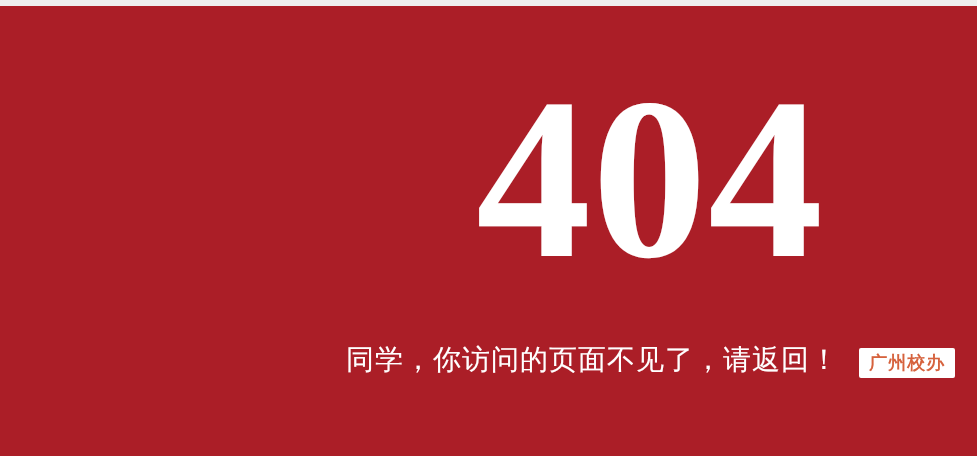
void draw(SkCanvas* canvas) {
    SkPaint paint;
    paint.setAntiAlias(true);
    auto face = [&](const char* family, int weight, float size, bool italic = false) {
        SkFontStyle style(weight, SkFontStyle::kNormal_Width,
            italic ? SkFontStyle::kItalic_Slant : SkFontStyle::kUpright_Slant);
        SkFont result(fontMgr->matchFamilyStyle(family, style), size);
        result.setSubpixel(true);
        return result;
    };
    auto writeSpaced = [&](const char* s, float x, float y, const SkFont& font, const SkPaint& ink, float letter, float word) {
        std::vector<SkGlyphID> glyphs(font.countText(s, strlen(s), SkTextEncoding::kUTF8));
        std::vector<float> xs(glyphs.size());
        font.textToGlyphs(s, strlen(s), SkTextEncoding::kUTF8, glyphs);
        font.getXPos(glyphs, xs, x);
        float extra = 0;
        for (size_t i = 0; i < glyphs.size(); i++) {
            xs[i] += extra;
            extra += letter + word * (glyphs[i] == font.unicharToGlyph(' '));
        }
        canvas->drawTextBlob(SkTextBlob::MakeFromPosHGlyphs(glyphs, xs, y, font), 0, 0, ink);
    };
    auto block = [&](float x, float y, float w, float h, SkColor color) {
        SkPaint ink(SkColor4f::FromColor(color));
        ink.setAntiAlias(true);
        canvas->drawRect(SkRect::MakeXYWH(x, y, w, h), ink);
    };
    auto card = [&](float x, float y, float w, float h, float radius, SkColor color) {
        SkPaint ink(SkColor4f::FromColor(color));
        ink.setAntiAlias(true);
        canvas->drawRoundRect(SkRect::MakeXYWH(x, y, w, h), radius, radius, ink);
    };
    canvas->clear(SkColorSetRGB(238, 238, 238));
    block(0, 6, 977, 450, SkColorSetRGB(171, 30, 39));
    auto kFont1 = face("Liberation Serif", 700, 230);
    paint.setColor(SK_ColorWHITE);
    writeSpaced("404", 476, 256, kFont1, paint, 1, 0);
    auto kFont2 = face("WenQuanYi Zen Hei", 500, 28);
    writeSpaced("同学，你访问的页面不见了，请返回！", 346, 369, kFont2, paint, 1, 0);
    card(859, 348, 96, 30, 2, SK_ColorWHITE);
    auto kFont3 = face("WenQuanYi Zen Hei", 700, 18);
    paint.setColor(SkColorSetRGB(214, 98, 61));
    writeSpaced("广州校办", 869, 369, kFont3, paint, 1, 0);
}
